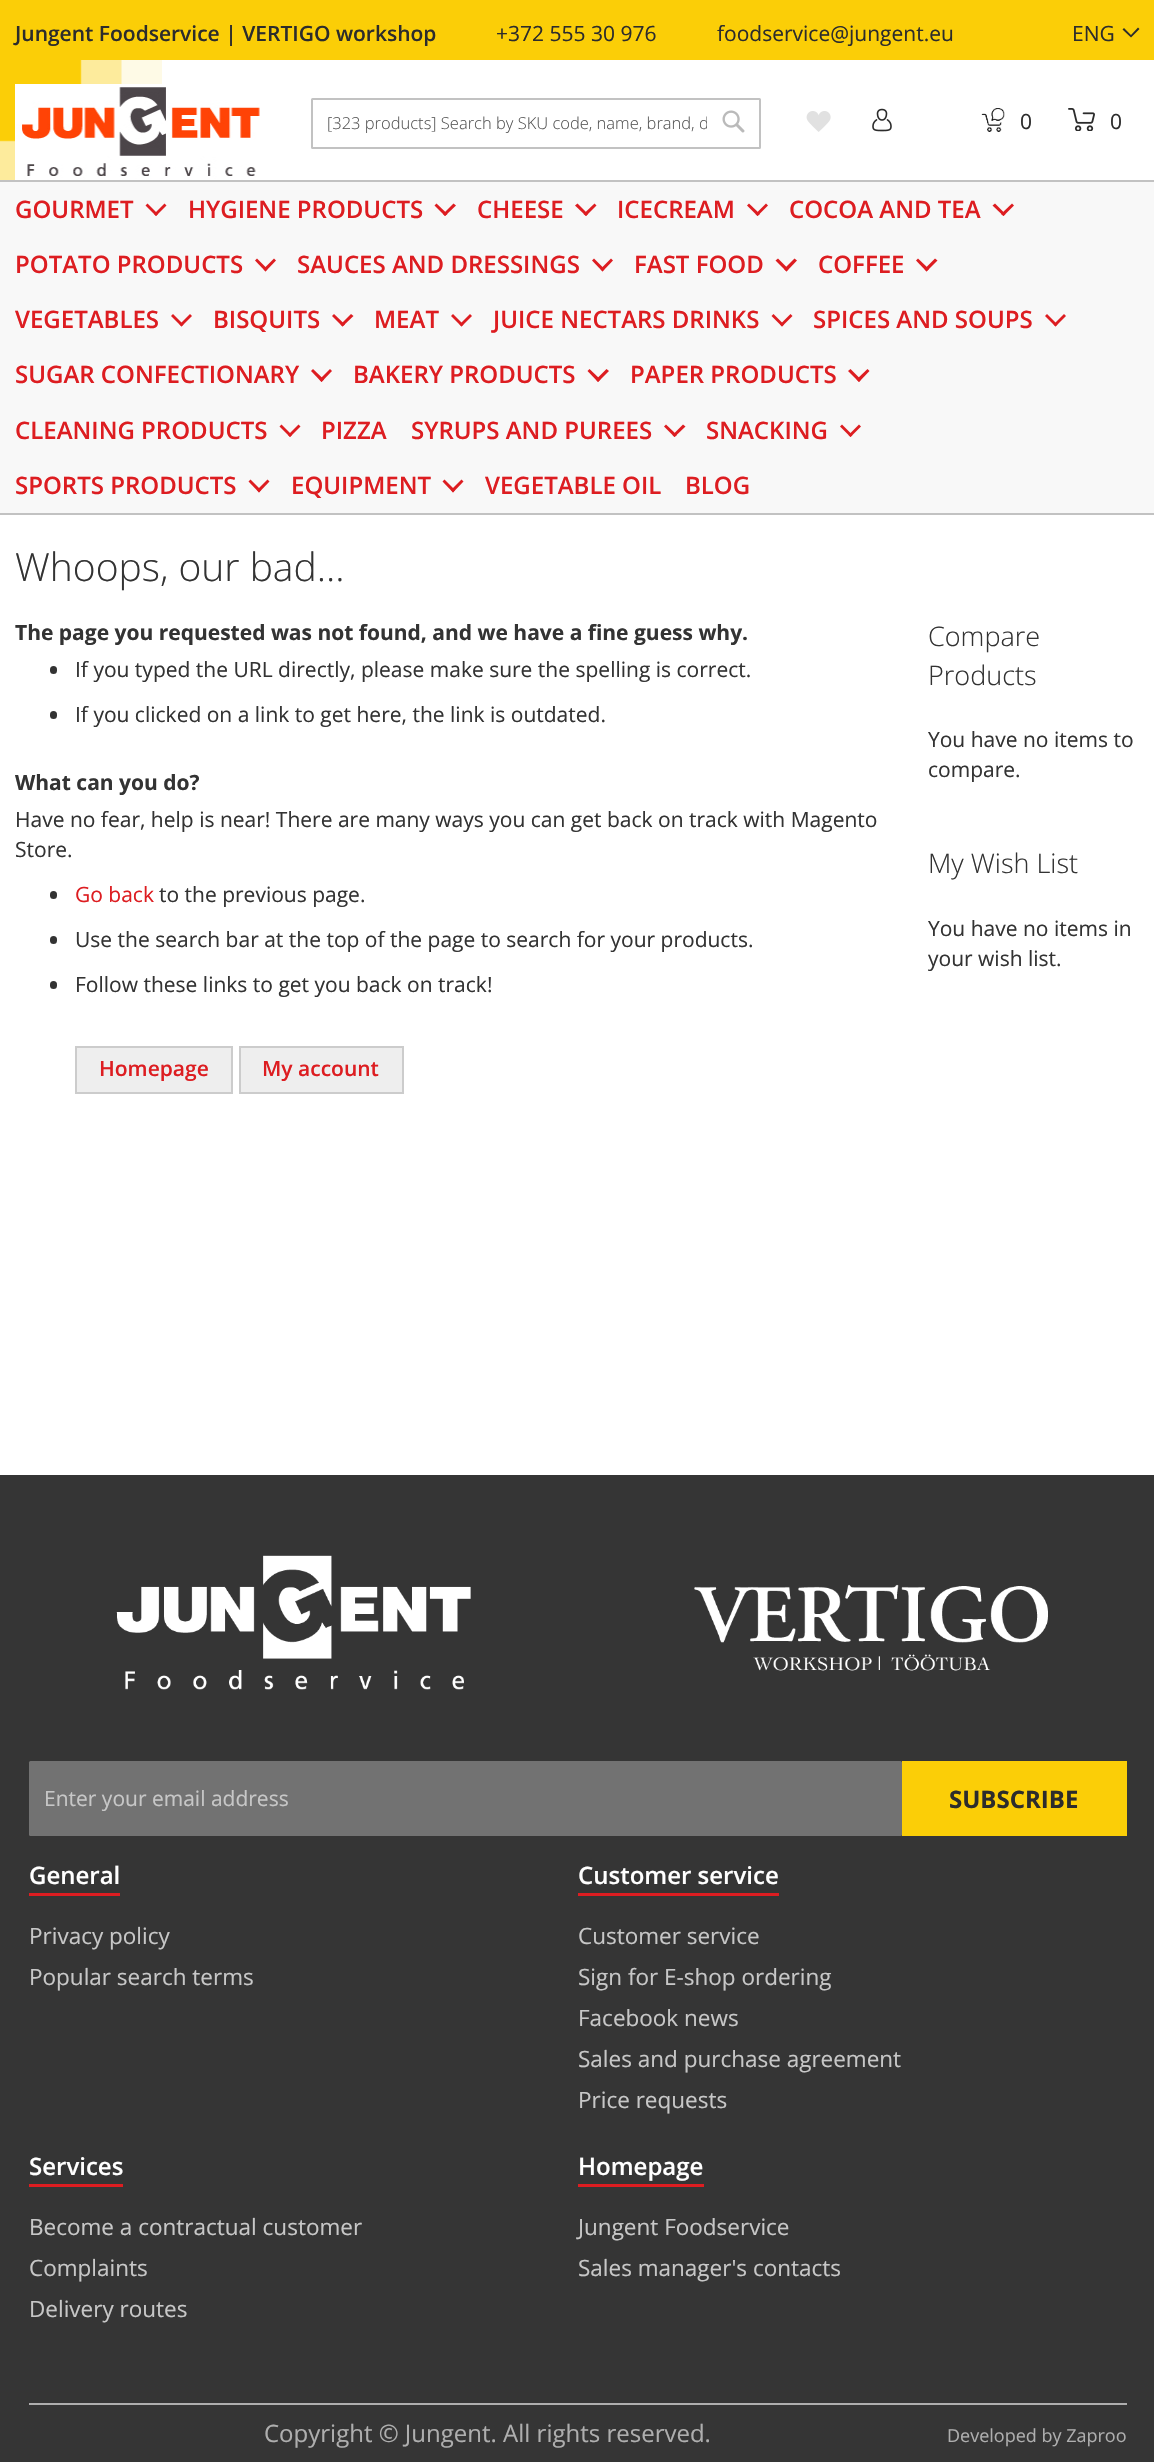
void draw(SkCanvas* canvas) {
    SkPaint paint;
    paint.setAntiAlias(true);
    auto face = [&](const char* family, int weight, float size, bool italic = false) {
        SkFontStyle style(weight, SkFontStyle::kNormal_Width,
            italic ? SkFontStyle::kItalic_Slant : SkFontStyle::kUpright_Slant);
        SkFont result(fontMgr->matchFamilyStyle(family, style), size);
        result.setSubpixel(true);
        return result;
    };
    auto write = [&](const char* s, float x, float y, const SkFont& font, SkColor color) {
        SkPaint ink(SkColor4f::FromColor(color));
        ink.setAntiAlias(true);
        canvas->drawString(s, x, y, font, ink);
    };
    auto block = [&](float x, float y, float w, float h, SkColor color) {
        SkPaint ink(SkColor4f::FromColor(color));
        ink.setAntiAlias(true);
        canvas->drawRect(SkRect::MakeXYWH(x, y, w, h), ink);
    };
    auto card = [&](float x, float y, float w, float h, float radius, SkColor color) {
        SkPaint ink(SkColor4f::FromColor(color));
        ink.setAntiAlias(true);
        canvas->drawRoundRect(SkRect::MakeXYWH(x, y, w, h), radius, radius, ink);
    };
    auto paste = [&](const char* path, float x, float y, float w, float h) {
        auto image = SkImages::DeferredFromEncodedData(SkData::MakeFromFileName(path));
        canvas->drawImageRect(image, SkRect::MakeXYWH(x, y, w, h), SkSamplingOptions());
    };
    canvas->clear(SK_ColorWHITE);
    paste("pic1.png", 0, 60, 162, 120);
    block(0, 0, 1154, 60, SkColorSetRGB(251, 206, 7));
    auto kFont1 = face("Open Sans", 600, 21);
    write("Jungent Foodservice | VERTIGO workshop", 15, 41, kFont1, SkColorSetRGB(44, 44, 44));
    auto kFont2 = face("Open Sans", 400, 21);
    write("+372 555 30 976", 496, 41, kFont2, SkColorSetRGB(44, 44, 44));
    write("foodservice@jungent.eu", 717, 41, kFont2, SkColorSetRGB(44, 44, 44));
    write("ENG", 1072, 41, kFont2, SkColorSetRGB(44, 44, 44));
    paint.setColor(SkColorSetRGB(44, 44, 44));
    canvas->drawPath(SkPathBuilder().moveTo(1131, 35).lineTo(1124, 28).lineTo(1122.5f, 29.5f).lineTo(1131, 37.5f).lineTo(1139.5f, 29).lineTo(1138, 27.5f).close().detach(), paint);
    paste("pic2.png", 15, 84, 245, 96);
    paint.setStyle(SkPaint::kStroke_Style);
    paint.setStrokeWidth(2);
    paint.setColor(SkColorSetRGB(194, 194, 194));
    canvas->drawRoundRect(SkRect::MakeXYWH(312, 99, 448, 49), 0.5f, 0.5f, paint);
    canvas->save();
    canvas->clipRect(SkRect::MakeXYWH(327, 111, 380, 23));
    auto kFont3 = face("Open Sans", 300, 16.5f);
    write("[323 products] Search by SKU code, name, brand, d", 327, 129, kFont3, SkColorSetRGB(87, 87, 87));
    canvas->restore();
    paste("pic3.png", 722, 110, 23, 23);
    paste("pic4.png", 806, 111, 25, 21);
    paste("pic5.png", 872, 108, 20, 24);
    paste("pic6.png", 981, 108, 24, 24);
    write("0", 1020, 129, kFont2, SkColorSetRGB(44, 44, 44));
    paste("pic7.png", 1068, 108, 27, 23);
    write("0", 1110, 129, kFont2, SkColorSetRGB(44, 44, 44));
    block(0, 182, 1154, 331, SkColorSetRGB(248, 248, 248));
    block(0, 180, 1154, 2, SkColorSetRGB(194, 194, 194));
    block(0, 513, 1154, 2, SkColorSetRGB(194, 194, 194));
    auto kFont4 = face("Open Sans", 600, 24);
    write("GOURMET", 15, 218, kFont4, SkColorSetRGB(221, 29, 33));
    paint.setStyle(SkPaint::kFill_Style);
    paint.setColor(SkColorSetRGB(221, 29, 33));
    canvas->drawPath(SkPathBuilder().moveTo(164.5f, 203.5f).lineTo(166.5f, 205.5f).lineTo(156, 216).lineTo(154, 214).close().detach(), paint);
    canvas->drawPath(SkPathBuilder().moveTo(147.5f, 203.5f).lineTo(158, 214).lineTo(156, 216).lineTo(145.5f, 205.5f).close().detach(), paint);
    write("HYGIENE PRODUCTS", 188, 218, kFont4, SkColorSetRGB(221, 29, 33));
    canvas->drawPath(SkPathBuilder().moveTo(453.5f, 203.5f).lineTo(456, 205.5f).lineTo(445, 216).lineTo(443, 214).close().detach(), paint);
    canvas->drawPath(SkPathBuilder().moveTo(436.5f, 203.5f).lineTo(447.5f, 214).lineTo(445, 216).lineTo(434.5f, 205.5f).close().detach(), paint);
    write("CHEESE", 477, 218, kFont4, SkColorSetRGB(221, 29, 33));
    canvas->drawPath(SkPathBuilder().moveTo(594.5f, 203.5f).lineTo(596.5f, 205.5f).lineTo(586, 216).lineTo(583.5f, 214).close().detach(), paint);
    canvas->drawPath(SkPathBuilder().moveTo(577.5f, 203.5f).lineTo(588, 214).lineTo(586, 216).lineTo(575, 205.5f).close().detach(), paint);
    write("ICECREAM", 617, 218, kFont4, SkColorSetRGB(221, 29, 33));
    canvas->drawPath(SkPathBuilder().moveTo(766, 203.5f).lineTo(768, 205.5f).lineTo(757.5f, 216).lineTo(755.5f, 214).close().detach(), paint);
    canvas->drawPath(SkPathBuilder().moveTo(749, 203.5f).lineTo(760, 214).lineTo(757.5f, 216).lineTo(747, 205.5f).close().detach(), paint);
    write("COCOA AND TEA", 789, 218, kFont4, SkColorSetRGB(221, 29, 33));
    canvas->drawPath(SkPathBuilder().moveTo(1012, 203.5f).lineTo(1014, 205.5f).lineTo(1003.5f, 216).lineTo(1001, 214).close().detach(), paint);
    canvas->drawPath(SkPathBuilder().moveTo(995, 203.5f).lineTo(1005.5f, 214).lineTo(1003.5f, 216).lineTo(992.5f, 205.5f).close().detach(), paint);
    write("POTATO PRODUCTS", 15, 273, kFont4, SkColorSetRGB(221, 29, 33));
    canvas->drawPath(SkPathBuilder().moveTo(274, 258.5f).lineTo(276, 260.5f).lineTo(265.5f, 271.5f).lineTo(263.5f, 269).close().detach(), paint);
    canvas->drawPath(SkPathBuilder().moveTo(257, 258.5f).lineTo(267.5f, 269).lineTo(265.5f, 271.5f).lineTo(255, 260.5f).close().detach(), paint);
    write("SAUCES AND DRESSINGS", 297, 273, kFont4, SkColorSetRGB(221, 29, 33));
    canvas->drawPath(SkPathBuilder().moveTo(611, 258.5f).lineTo(613, 260.5f).lineTo(602.5f, 271.5f).lineTo(600.5f, 269).close().detach(), paint);
    canvas->drawPath(SkPathBuilder().moveTo(594, 258.5f).lineTo(604.5f, 269).lineTo(602.5f, 271.5f).lineTo(592, 260.5f).close().detach(), paint);
    write("FAST FOOD", 634, 273, kFont4, SkColorSetRGB(221, 29, 33));
    canvas->drawPath(SkPathBuilder().moveTo(794.5f, 258.5f).lineTo(797, 260.5f).lineTo(786.5f, 271.5f).lineTo(784, 269).close().detach(), paint);
    canvas->drawPath(SkPathBuilder().moveTo(778, 258.5f).lineTo(788.5f, 269).lineTo(786.5f, 271.5f).lineTo(775.5f, 260.5f).close().detach(), paint);
    write("COFFEE", 818, 273, kFont4, SkColorSetRGB(221, 29, 33));
    canvas->drawPath(SkPathBuilder().moveTo(935, 258.5f).lineTo(937.5f, 260.5f).lineTo(926.5f, 271.5f).lineTo(924.5f, 269).close().detach(), paint);
    canvas->drawPath(SkPathBuilder().moveTo(918, 258.5f).lineTo(929, 269).lineTo(926.5f, 271.5f).lineTo(916, 260.5f).close().detach(), paint);
    write("VEGETABLES", 15, 328, kFont4, SkColorSetRGB(221, 29, 33));
    canvas->drawPath(SkPathBuilder().moveTo(190, 314).lineTo(192, 316).lineTo(181.5f, 326.5f).lineTo(179.5f, 324.5f).close().detach(), paint);
    canvas->drawPath(SkPathBuilder().moveTo(173, 314).lineTo(183.5f, 324.5f).lineTo(181.5f, 326.5f).lineTo(171, 316).close().detach(), paint);
    write("BISQUITS", 213, 328, kFont4, SkColorSetRGB(221, 29, 33));
    canvas->drawPath(SkPathBuilder().moveTo(351, 314).lineTo(353.5f, 316).lineTo(342.5f, 326.5f).lineTo(340.5f, 324.5f).close().detach(), paint);
    canvas->drawPath(SkPathBuilder().moveTo(334, 314).lineTo(345, 324.5f).lineTo(342.5f, 326.5f).lineTo(332, 316).close().detach(), paint);
    write("MEAT", 374, 328, kFont4, SkColorSetRGB(221, 29, 33));
    canvas->drawPath(SkPathBuilder().moveTo(470, 314).lineTo(472, 316).lineTo(461.5f, 326.5f).lineTo(459.5f, 324.5f).close().detach(), paint);
    canvas->drawPath(SkPathBuilder().moveTo(453, 314).lineTo(463.5f, 324.5f).lineTo(461.5f, 326.5f).lineTo(451, 316).close().detach(), paint);
    write("JUICE NECTARS DRINKS", 493, 328, kFont4, SkColorSetRGB(221, 29, 33));
    canvas->drawPath(SkPathBuilder().moveTo(790.5f, 314).lineTo(792.5f, 316).lineTo(782, 326.5f).lineTo(780, 324.5f).close().detach(), paint);
    canvas->drawPath(SkPathBuilder().moveTo(773.5f, 314).lineTo(784, 324.5f).lineTo(782, 326.5f).lineTo(771.5f, 316).close().detach(), paint);
    write("SPICES AND SOUPS", 813, 328, kFont4, SkColorSetRGB(221, 29, 33));
    canvas->drawPath(SkPathBuilder().moveTo(1064, 314).lineTo(1066, 316).lineTo(1055.5f, 326.5f).lineTo(1053.5f, 324.5f).close().detach(), paint);
    canvas->drawPath(SkPathBuilder().moveTo(1047, 314).lineTo(1057.5f, 324.5f).lineTo(1055.5f, 326.5f).lineTo(1045, 316).close().detach(), paint);
    write("SUGAR CONFECTIONARY", 15, 383, kFont4, SkColorSetRGB(221, 29, 33));
    canvas->drawPath(SkPathBuilder().moveTo(330, 369).lineTo(332, 371).lineTo(321.5f, 382).lineTo(319.5f, 379.5f).close().detach(), paint);
    canvas->drawPath(SkPathBuilder().moveTo(313, 369).lineTo(324, 379.5f).lineTo(321.5f, 382).lineTo(311, 371).close().detach(), paint);
    write("BAKERY PRODUCTS", 353, 383, kFont4, SkColorSetRGB(221, 29, 33));
    canvas->drawPath(SkPathBuilder().moveTo(606.5f, 369).lineTo(609, 371).lineTo(598, 382).lineTo(596, 379.5f).close().detach(), paint);
    canvas->drawPath(SkPathBuilder().moveTo(589.5f, 369).lineTo(600.5f, 379.5f).lineTo(598, 382).lineTo(587.5f, 371).close().detach(), paint);
    write("PAPER PRODUCTS", 630, 383, kFont4, SkColorSetRGB(221, 29, 33));
    canvas->drawPath(SkPathBuilder().moveTo(867.5f, 369).lineTo(869.5f, 371).lineTo(859, 382).lineTo(856.5f, 379.5f).close().detach(), paint);
    canvas->drawPath(SkPathBuilder().moveTo(850.5f, 369).lineTo(861, 379.5f).lineTo(859, 382).lineTo(848, 371).close().detach(), paint);
    write("CLEANING PRODUCTS", 15, 439, kFont4, SkColorSetRGB(221, 29, 33));
    canvas->drawPath(SkPathBuilder().moveTo(298.5f, 424.5f).lineTo(300.5f, 426.5f).lineTo(290, 437).lineTo(288, 435).close().detach(), paint);
    canvas->drawPath(SkPathBuilder().moveTo(281.5f, 424.5f).lineTo(292, 435).lineTo(290, 437).lineTo(279.5f, 426.5f).close().detach(), paint);
    write("PIZZA", 321, 439, kFont4, SkColorSetRGB(221, 29, 33));
    write("SYRUPS AND PUREES", 411, 439, kFont4, SkColorSetRGB(221, 29, 33));
    canvas->drawPath(SkPathBuilder().moveTo(683, 424.5f).lineTo(685.5f, 426.5f).lineTo(674.5f, 437).lineTo(672.5f, 435).close().detach(), paint);
    canvas->drawPath(SkPathBuilder().moveTo(666, 424.5f).lineTo(677, 435).lineTo(674.5f, 437).lineTo(664, 426.5f).close().detach(), paint);
    write("SNACKING", 706, 439, kFont4, SkColorSetRGB(221, 29, 33));
    canvas->drawPath(SkPathBuilder().moveTo(859, 424.5f).lineTo(861, 426.5f).lineTo(850.5f, 437).lineTo(848.5f, 435).close().detach(), paint);
    canvas->drawPath(SkPathBuilder().moveTo(842, 424.5f).lineTo(852.5f, 435).lineTo(850.5f, 437).lineTo(840, 426.5f).close().detach(), paint);
    write("SPORTS PRODUCTS", 15, 494, kFont4, SkColorSetRGB(221, 29, 33));
    canvas->drawPath(SkPathBuilder().moveTo(267.5f, 479.5f).lineTo(269.5f, 481.5f).lineTo(259, 492.5f).lineTo(257, 490).close().detach(), paint);
    canvas->drawPath(SkPathBuilder().moveTo(250.5f, 479.5f).lineTo(261, 490).lineTo(259, 492.5f).lineTo(248.5f, 481.5f).close().detach(), paint);
    write("EQUIPMENT", 291, 494, kFont4, SkColorSetRGB(221, 29, 33));
    canvas->drawPath(SkPathBuilder().moveTo(461.5f, 479.5f).lineTo(463.5f, 481.5f).lineTo(453, 492.5f).lineTo(451, 490).close().detach(), paint);
    canvas->drawPath(SkPathBuilder().moveTo(444.5f, 479.5f).lineTo(455, 490).lineTo(453, 492.5f).lineTo(442.5f, 481.5f).close().detach(), paint);
    write("VEGETABLE OIL", 485, 494, kFont4, SkColorSetRGB(221, 29, 33));
    write("BLOG", 685, 494, kFont4, SkColorSetRGB(221, 29, 33));
    auto kFont5 = face("Open Sans", 300, 39);
    write("Whoops, our bad...", 15, 581, kFont5, SkColorSetRGB(51, 51, 51));
    auto kFont6 = face("Open Sans", 700, 21);
    write("The page you requested was not found, and we have a fine guess why.", 15, 640, kFont6, SkColorSetRGB(51, 51, 51));
    card(50, 666, 7, 8, 3.5f, SkColorSetRGB(51, 51, 51));
    write("If you typed the URL directly, please make sure the spelling is correct.", 75, 677, kFont2, SkColorSetRGB(51, 51, 51));
    card(50, 711, 7, 8, 3.5f, SkColorSetRGB(51, 51, 51));
    write("If you clicked on a link to get here, the link is outdated.", 75, 722, kFont2, SkColorSetRGB(51, 51, 51));
    write("What can you do?", 15, 790, kFont6, SkColorSetRGB(51, 51, 51));
    write("Have no fear, help is near! There are many ways you can get back on track with Magento", 15, 827, kFont2, SkColorSetRGB(51, 51, 51));
    write("Store.", 15, 857, kFont2, SkColorSetRGB(51, 51, 51));
    card(50, 891, 7, 8, 3.5f, SkColorSetRGB(51, 51, 51));
    write("Go back", 75, 902, kFont2, SkColorSetRGB(221, 29, 33));
    write("to the previous page.", 159, 902, kFont2, SkColorSetRGB(51, 51, 51));
    card(50, 936, 7, 8, 3.5f, SkColorSetRGB(51, 51, 51));
    write("Use the search bar at the top of the page to search for your products.", 75, 947, kFont2, SkColorSetRGB(51, 51, 51));
    card(50, 981, 7, 8, 3.5f, SkColorSetRGB(51, 51, 51));
    write("Follow these links to get you back on track!", 75, 992, kFont2, SkColorSetRGB(51, 51, 51));
    paint.setColor(SkColorSetRGB(238, 238, 238));
    canvas->drawRect(SkRect::MakeXYWH(76, 1047, 156, 46), paint);
    paint.setStyle(SkPaint::kStroke_Style);
    paint.setColor(SkColorSetRGB(204, 204, 204));
    canvas->drawRect(SkRect::MakeXYWH(76, 1047, 156, 46), paint);
    write("Homepage", 99, 1076, kFont1, SkColorSetRGB(221, 29, 33));
    paint.setStyle(SkPaint::kFill_Style);
    paint.setColor(SkColorSetRGB(238, 238, 238));
    canvas->drawRect(SkRect::MakeXYWH(240, 1047, 163, 46), paint);
    paint.setStyle(SkPaint::kStroke_Style);
    paint.setColor(SkColorSetRGB(204, 204, 204));
    canvas->drawRect(SkRect::MakeXYWH(240, 1047, 163, 46), paint);
    write("My account", 262, 1076, kFont1, SkColorSetRGB(221, 29, 33));
    auto kFont7 = face("Open Sans", 300, 27);
    write("Compare", 928, 646, kFont7, SkColorSetRGB(51, 51, 51));
    write("Products", 928, 685, kFont7, SkColorSetRGB(51, 51, 51));
    write("You have no items to", 928, 747, kFont2, SkColorSetRGB(51, 51, 51));
    write("compare.", 928, 777, kFont2, SkColorSetRGB(51, 51, 51));
    write("My Wish List", 928, 873, kFont7, SkColorSetRGB(51, 51, 51));
    write("You have no items in", 928, 936, kFont2, SkColorSetRGB(51, 51, 51));
    write("your wish list.", 928, 966, kFont2, SkColorSetRGB(51, 51, 51));
    block(0, 1475, 1154, 987, SkColorSetRGB(53, 53, 53));
    paste("pic8.png", 116, 1555, 355, 135);
    paste("pic9.png", 694, 1584, 354, 87);
    card(29, 1761, 873, 75, 1.5f, SkColorSetRGB(114, 114, 114));
    write("Enter your email address", 44, 1806, kFont2, SkColorSetRGB(199, 199, 199));
    block(902, 1761, 225, 75, SkColorSetRGB(251, 206, 7));
    auto kFont8 = face("Open Sans", 700, 24);
    write("SUBSCRIBE", 949, 1808, kFont8, SkColorSetRGB(44, 44, 44));
    block(29, 1893, 91, 3, SkColorSetRGB(221, 29, 33));
    write("General", 29, 1884, kFont4, SK_ColorWHITE);
    auto kFont9 = face("Open Sans", 400, 22.5f);
    write("Privacy policy", 29, 1944, kFont9, SkColorSetRGB(199, 199, 199));
    write("Popular search terms", 29, 1985, kFont9, SkColorSetRGB(199, 199, 199));
    block(578, 1893, 201, 3, SkColorSetRGB(221, 29, 33));
    write("Customer service", 578, 1884, kFont4, SK_ColorWHITE);
    write("Customer service", 578, 1944, kFont9, SkColorSetRGB(199, 199, 199));
    write("Sign for E-shop ordering", 578, 1985, kFont9, SkColorSetRGB(199, 199, 199));
    write("Facebook news", 578, 2026, kFont9, SkColorSetRGB(199, 199, 199));
    write("Sales and purchase agreement", 578, 2067, kFont9, SkColorSetRGB(199, 199, 199));
    write("Price requests", 578, 2108, kFont9, SkColorSetRGB(199, 199, 199));
    block(29, 2184, 94, 3, SkColorSetRGB(221, 29, 33));
    write("Services", 29, 2175, kFont4, SK_ColorWHITE);
    write("Become a contractual customer", 29, 2235, kFont9, SkColorSetRGB(199, 199, 199));
    write("Complaints", 29, 2276, kFont9, SkColorSetRGB(199, 199, 199));
    write("Delivery routes", 29, 2317, kFont9, SkColorSetRGB(199, 199, 199));
    block(578, 2184, 126, 3, SkColorSetRGB(221, 29, 33));
    write("Homepage", 578, 2175, kFont4, SK_ColorWHITE);
    write("Jungent Foodservice", 578, 2235, kFont9, SkColorSetRGB(199, 199, 199));
    write("Sales manager's contacts", 578, 2276, kFont9, SkColorSetRGB(199, 199, 199));
    block(29, 2403, 1098, 2, SkColorSetRGB(174, 174, 174));
    auto kFont10 = face("Open Sans", 400, 24);
    write("Copyright © Jungent. All rights reserved.", 264, 2442, kFont10, SkColorSetRGB(174, 174, 174));
    auto kFont11 = face("Open Sans", 400, 18);
    write("Developed by Zaproo", 947, 2442, kFont11, SkColorSetRGB(174, 174, 174));
}
